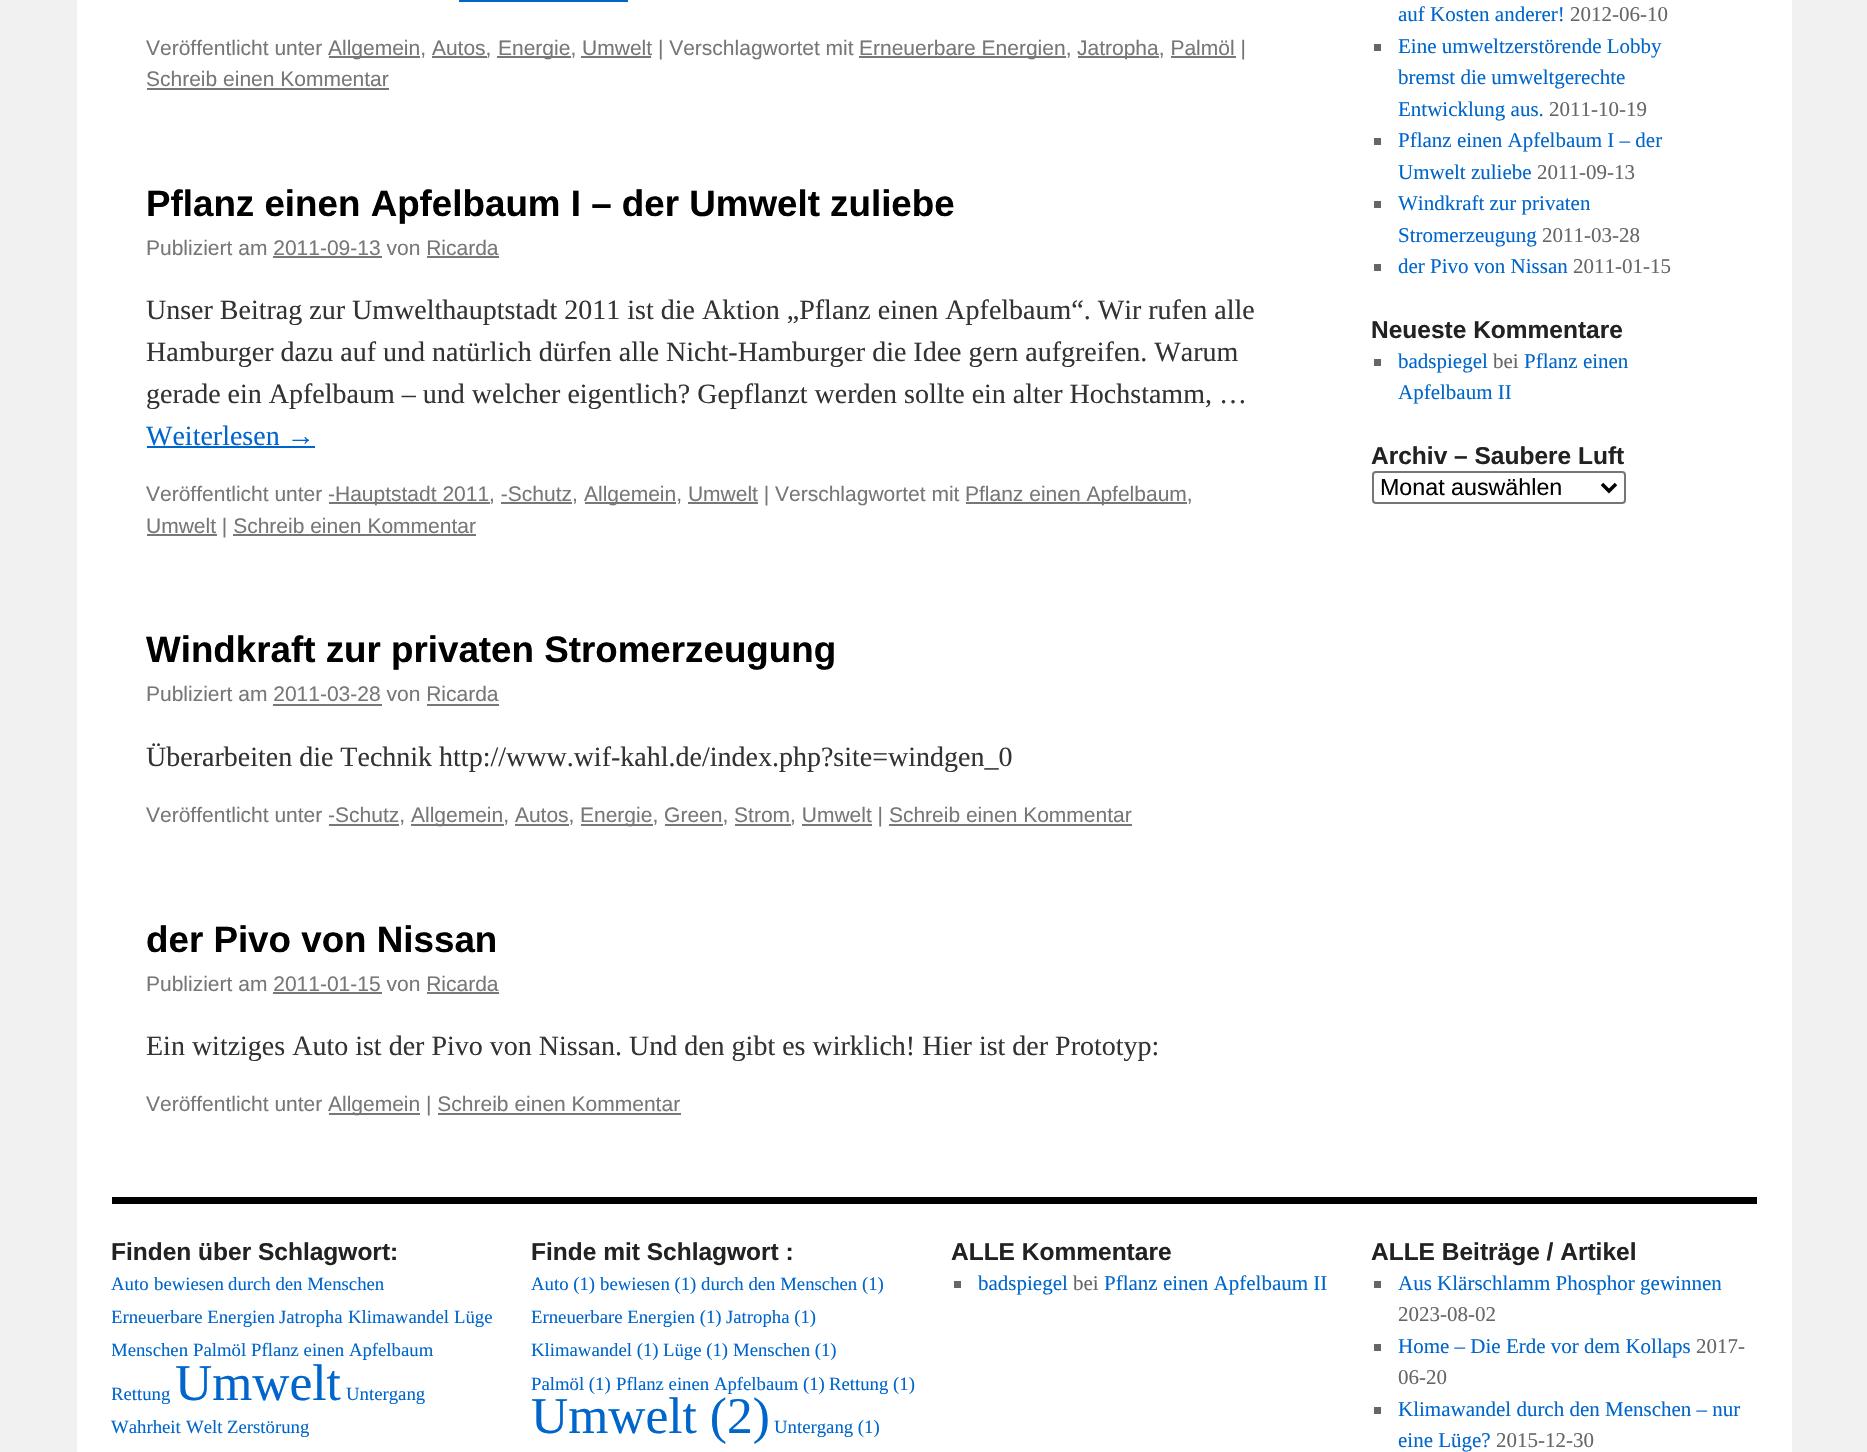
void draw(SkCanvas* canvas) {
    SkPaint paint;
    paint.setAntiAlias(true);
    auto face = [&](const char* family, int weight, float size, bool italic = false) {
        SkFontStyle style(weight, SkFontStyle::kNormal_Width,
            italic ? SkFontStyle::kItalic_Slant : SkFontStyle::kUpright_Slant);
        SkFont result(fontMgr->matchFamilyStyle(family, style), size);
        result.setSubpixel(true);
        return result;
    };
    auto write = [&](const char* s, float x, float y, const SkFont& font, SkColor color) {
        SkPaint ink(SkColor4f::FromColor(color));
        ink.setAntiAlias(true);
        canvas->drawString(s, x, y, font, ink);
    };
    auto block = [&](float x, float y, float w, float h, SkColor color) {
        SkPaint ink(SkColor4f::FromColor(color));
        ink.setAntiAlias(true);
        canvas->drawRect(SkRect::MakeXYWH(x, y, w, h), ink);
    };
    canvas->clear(SkColorSetRGB(241, 241, 241));
    block(77, 0, 1715, 1452, SK_ColorWHITE);
    block(459, 0, 169, 2, SkColorSetRGB(0, 102, 204));
    auto kFont1 = face("Liberation Sans", 400, 21);
    write("Veröffentlicht unter", 146, 55, kFont1, SkColorSetRGB(119, 119, 119));
    block(329, 56, 91, 2, SkColorSetRGB(119, 119, 119));
    write("Allgemein, Autos,", 328, 55, kFont1, SkColorSetRGB(119, 119, 119));
    block(432, 56, 55, 2, SkColorSetRGB(119, 119, 119));
    block(497, 56, 74, 2, SkColorSetRGB(119, 119, 119));
    write("Energie, Umwelt | Verschlagwortet mit", 498, 55, kFont1, SkColorSetRGB(119, 119, 119));
    block(581, 56, 70, 2, SkColorSetRGB(119, 119, 119));
    block(859, 56, 207, 2, SkColorSetRGB(119, 119, 119));
    write("Erneuerbare Energien,", 859, 55, kFont1, SkColorSetRGB(119, 119, 119));
    block(1078, 56, 81, 2, SkColorSetRGB(119, 119, 119));
    write("Jatropha, Palmöl |", 1077, 55, kFont1, SkColorSetRGB(119, 119, 119));
    block(1171, 56, 65, 2, SkColorSetRGB(119, 119, 119));
    write("Schreib einen Kommentar", 146, 86, kFont1, SkColorSetRGB(119, 119, 119));
    block(147, 88, 242, 2, SkColorSetRGB(119, 119, 119));
    auto kFont2 = face("Liberation Sans", 700, 36.75f);
    write("Pflanz einen Apfelbaum I – der Umwelt zuliebe", 146, 216, kFont2, SK_ColorBLACK);
    write("Publiziert am 2011-09-13 von Ricarda", 146, 255, kFont1, SkColorSetRGB(119, 119, 119));
    block(273, 256, 109, 2, SkColorSetRGB(119, 119, 119));
    block(427, 256, 72, 2, SkColorSetRGB(119, 119, 119));
    auto kFont3 = face("Liberation Serif", 400, 28);
    write("Unser Beitrag zur Umwelthauptstadt 2011 ist die Aktion „Pflanz einen Apfelbaum“. Wir rufen alle", 146, 319, kFont3, SkColorSetRGB(51, 51, 51));
    write("Hamburger dazu auf und natürlich dürfen alle Nicht-Hamburger die Idee gern aufgreifen. Warum", 146, 361, kFont3, SkColorSetRGB(51, 51, 51));
    write("gerade ein Apfelbaum – und welcher eigentlich? Gepflanzt werden sollte ein alter Hochstamm, …", 146, 403, kFont3, SkColorSetRGB(51, 51, 51));
    write("Weiterlesen →", 146, 445, kFont3, SkColorSetRGB(0, 102, 204));
    block(147, 446, 168, 2, SkColorSetRGB(0, 102, 204));
    write("Veröffentlicht unter", 146, 501, kFont1, SkColorSetRGB(119, 119, 119));
    block(329, 502, 161, 2, SkColorSetRGB(119, 119, 119));
    write("-Hauptstadt 2011, -Schutz,", 328, 501, kFont1, SkColorSetRGB(119, 119, 119));
    block(501, 502, 71, 2, SkColorSetRGB(119, 119, 119));
    block(585, 502, 91, 2, SkColorSetRGB(119, 119, 119));
    write("Allgemein, Umwelt | Verschlagwortet mit", 584, 501, kFont1, SkColorSetRGB(119, 119, 119));
    block(688, 502, 70, 2, SkColorSetRGB(119, 119, 119));
    block(966, 502, 221, 2, SkColorSetRGB(119, 119, 119));
    write("Pflanz einen Apfelbaum,", 965, 501, kFont1, SkColorSetRGB(119, 119, 119));
    block(147, 534, 70, 2, SkColorSetRGB(119, 119, 119));
    write("Umwelt | Schreib einen Kommentar", 146, 533, kFont1, SkColorSetRGB(119, 119, 119));
    block(233, 534, 243, 2, SkColorSetRGB(119, 119, 119));
    write("Windkraft zur privaten Stromerzeugung", 146, 662, kFont2, SK_ColorBLACK);
    write("Publiziert am 2011-03-28 von Ricarda", 146, 701, kFont1, SkColorSetRGB(119, 119, 119));
    block(273, 704, 109, 2, SkColorSetRGB(119, 119, 119));
    block(427, 704, 72, 2, SkColorSetRGB(119, 119, 119));
    write("Überarbeiten die Technik http://www.wif-kahl.de/index.php?site=windgen_0", 146, 766, kFont3, SkColorSetRGB(51, 51, 51));
    write("Veröffentlicht unter -Schutz,", 146, 822, kFont1, SkColorSetRGB(119, 119, 119));
    block(329, 824, 70, 2, SkColorSetRGB(119, 119, 119));
    block(411, 824, 93, 2, SkColorSetRGB(119, 119, 119));
    write("Allgemein, Autos,", 411, 822, kFont1, SkColorSetRGB(119, 119, 119));
    block(515, 824, 54, 2, SkColorSetRGB(119, 119, 119));
    block(581, 824, 72, 2, SkColorSetRGB(119, 119, 119));
    write("Energie, Green, Strom, Umwelt | Schreib einen Kommentar", 580, 822, kFont1, SkColorSetRGB(119, 119, 119));
    block(665, 824, 58, 2, SkColorSetRGB(119, 119, 119));
    block(735, 824, 56, 2, SkColorSetRGB(119, 119, 119));
    block(802, 824, 70, 2, SkColorSetRGB(119, 119, 119));
    block(889, 824, 243, 2, SkColorSetRGB(119, 119, 119));
    write("der Pivo von Nissan", 146, 952, kFont2, SK_ColorBLACK);
    write("Publiziert am 2011-01-15 von Ricarda", 146, 991, kFont1, SkColorSetRGB(119, 119, 119));
    block(273, 992, 109, 2, SkColorSetRGB(119, 119, 119));
    block(427, 992, 72, 2, SkColorSetRGB(119, 119, 119));
    write("Ein witziges Auto ist der Pivo von Nissan. Und den gibt es wirklich! Hier ist der Prototyp:", 146, 1055, kFont3, SkColorSetRGB(51, 51, 51));
    write("Veröffentlicht unter", 146, 1111, kFont1, SkColorSetRGB(119, 119, 119));
    block(329, 1113, 91, 2, SkColorSetRGB(119, 119, 119));
    write("Allgemein | Schreib einen Kommentar", 328, 1111, kFont1, SkColorSetRGB(119, 119, 119));
    block(438, 1113, 243, 2, SkColorSetRGB(119, 119, 119));
    auto kFont4 = face("Liberation Serif", 400, 21);
    write("auf Kosten anderer!", 1398, 21, kFont4, SkColorSetRGB(0, 102, 204));
    write("2012-06-10", 1570, 21, kFont4, SkColorSetRGB(102, 102, 102));
    block(1374, 44, 7, 7, SkColorSetRGB(102, 102, 102));
    write("Eine umweltzerstörende Lobby", 1398, 53, kFont4, SkColorSetRGB(0, 102, 204));
    write("bremst die umweltgerechte", 1398, 84, kFont4, SkColorSetRGB(0, 102, 204));
    write("Entwicklung aus.", 1398, 116, kFont4, SkColorSetRGB(0, 102, 204));
    write("2011-10-19", 1549, 116, kFont4, SkColorSetRGB(102, 102, 102));
    block(1374, 138, 7, 7, SkColorSetRGB(102, 102, 102));
    write("Pflanz einen Apfelbaum I – der", 1398, 147, kFont4, SkColorSetRGB(0, 102, 204));
    write("Umwelt zuliebe", 1398, 179, kFont4, SkColorSetRGB(0, 102, 204));
    write("2011-09-13", 1537, 179, kFont4, SkColorSetRGB(102, 102, 102));
    block(1374, 201, 7, 7, SkColorSetRGB(102, 102, 102));
    write("Windkraft zur privaten", 1398, 210, kFont4, SkColorSetRGB(0, 102, 204));
    write("Stromerzeugung", 1398, 242, kFont4, SkColorSetRGB(0, 102, 204));
    write("2011-03-28", 1542, 242, kFont4, SkColorSetRGB(102, 102, 102));
    block(1374, 264, 7, 7, SkColorSetRGB(102, 102, 102));
    write("der Pivo von Nissan", 1398, 273, kFont4, SkColorSetRGB(0, 102, 204));
    write("2011-01-15", 1573, 273, kFont4, SkColorSetRGB(102, 102, 102));
    auto kFont5 = face("Liberation Sans", 700, 24.5f);
    write("Neueste Kommentare", 1371, 338, kFont5, SkColorSetRGB(34, 34, 34));
    block(1374, 359, 7, 7, SkColorSetRGB(102, 102, 102));
    write("badspiegel", 1398, 368, kFont4, SkColorSetRGB(0, 102, 204));
    write("bei", 1493, 368, kFont4, SkColorSetRGB(102, 102, 102));
    write("Pflanz einen", 1524, 368, kFont4, SkColorSetRGB(0, 102, 204));
    write("Apfelbaum II", 1398, 399, kFont4, SkColorSetRGB(0, 102, 204));
    write("Archiv – Saubere Luft", 1371, 464, kFont5, SkColorSetRGB(34, 34, 34));
    paint.setStyle(SkPaint::kStroke_Style);
    paint.setStrokeWidth(2);
    paint.setColor(SkColorSetRGB(118, 118, 118));
    canvas->drawRoundRect(SkRect::MakeXYWH(1373, 472, 252, 31), 3, 3, paint);
    paint.setStrokeWidth(3.5f);
    paint.setColor(SK_ColorBLACK);
    canvas->drawPath(SkPathBuilder().moveTo(1602, 484).lineTo(1609, 491).lineTo(1616, 484).detach(), paint);
    auto kFont6 = face("Liberation Sans", 400, 23.25f);
    write("Monat auswählen", 1380, 495, kFont6, SK_ColorBLACK);
    block(112, 1197, 1645, 7, SK_ColorBLACK);
    write("Finden über Schlagwort:", 111, 1260, kFont5, SkColorSetRGB(34, 34, 34));
    auto kFont7 = face("Liberation Serif", 400, 18.75f);
    write("Auto", 111, 1290, kFont7, SkColorSetRGB(0, 102, 204));
    write("bewiesen", 154, 1290, kFont7, SkColorSetRGB(0, 102, 204));
    write("durch den Menschen", 228, 1290, kFont7, SkColorSetRGB(0, 102, 204));
    canvas->save();
    canvas->clipRect(SkRect::MakeXYWH(112, 1236, 1645, 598));
    write("Erneuerbare Energien", 111, 1323, kFont7, SkColorSetRGB(0, 102, 204));
    canvas->restore();
    write("Jatropha", 279, 1323, kFont7, SkColorSetRGB(0, 102, 204));
    write("Klimawandel", 348, 1323, kFont7, SkColorSetRGB(0, 102, 204));
    write("Lüge", 454, 1323, kFont7, SkColorSetRGB(0, 102, 204));
    canvas->save();
    canvas->clipRect(SkRect::MakeXYWH(112, 1236, 1645, 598));
    write("Menschen", 111, 1356, kFont7, SkColorSetRGB(0, 102, 204));
    canvas->restore();
    write("Palmöl", 193, 1356, kFont7, SkColorSetRGB(0, 102, 204));
    write("Pflanz einen Apfelbaum", 251, 1356, kFont7, SkColorSetRGB(0, 102, 204));
    canvas->save();
    canvas->clipRect(SkRect::MakeXYWH(112, 1236, 1645, 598));
    write("Rettung", 111, 1400, kFont7, SkColorSetRGB(0, 102, 204));
    canvas->restore();
    auto kFont8 = face("Liberation Serif", 400, 51.5f);
    write("Umwelt", 175, 1400, kFont8, SkColorSetRGB(0, 102, 204));
    write("Untergang", 346, 1400, kFont7, SkColorSetRGB(0, 102, 204));
    write("Wahrheit", 111, 1433, kFont7, SkColorSetRGB(0, 102, 204));
    write("Welt", 186, 1433, kFont7, SkColorSetRGB(0, 102, 204));
    write("Zerstörung", 227, 1433, kFont7, SkColorSetRGB(0, 102, 204));
    write("Finde mit Schlagwort :", 531, 1260, kFont5, SkColorSetRGB(34, 34, 34));
    write("Auto (1)", 531, 1290, kFont7, SkColorSetRGB(0, 102, 204));
    write("bewiesen (1)", 600, 1290, kFont7, SkColorSetRGB(0, 102, 204));
    write("durch den Menschen (1)", 701, 1290, kFont7, SkColorSetRGB(0, 102, 204));
    write("Erneuerbare Energien (1)", 531, 1323, kFont7, SkColorSetRGB(0, 102, 204));
    write("Jatropha (1)", 726, 1323, kFont7, SkColorSetRGB(0, 102, 204));
    write("Klimawandel (1)", 531, 1356, kFont7, SkColorSetRGB(0, 102, 204));
    write("Lüge (1)", 663, 1356, kFont7, SkColorSetRGB(0, 102, 204));
    write("Menschen (1)", 733, 1356, kFont7, SkColorSetRGB(0, 102, 204));
    write("Palmöl (1)", 531, 1390, kFont7, SkColorSetRGB(0, 102, 204));
    write("Pflanz einen Apfelbaum (1)", 616, 1390, kFont7, SkColorSetRGB(0, 102, 204));
    write("Rettung (1)", 829, 1390, kFont7, SkColorSetRGB(0, 102, 204));
    write("Umwelt (2)", 531, 1433, kFont8, SkColorSetRGB(0, 102, 204));
    write("Untergang (1)", 774, 1433, kFont7, SkColorSetRGB(0, 102, 204));
    write("ALLE Kommentare", 951, 1260, kFont5, SkColorSetRGB(34, 34, 34));
    block(954, 1281, 7, 7, SkColorSetRGB(102, 102, 102));
    write("badspiegel", 978, 1290, kFont4, SkColorSetRGB(0, 102, 204));
    write("bei", 1073, 1290, kFont4, SkColorSetRGB(102, 102, 102));
    write("Pflanz einen Apfelbaum II", 1104, 1290, kFont4, SkColorSetRGB(0, 102, 204));
    write("ALLE Beiträge / Artikel", 1371, 1260, kFont5, SkColorSetRGB(34, 34, 34));
    block(1374, 1281, 7, 7, SkColorSetRGB(102, 102, 102));
    write("Aus Klärschlamm Phosphor gewinnen", 1398, 1290, kFont4, SkColorSetRGB(0, 102, 204));
    write("2023-08-02", 1398, 1321, kFont4, SkColorSetRGB(102, 102, 102));
    block(1374, 1344, 7, 7, SkColorSetRGB(102, 102, 102));
    write("Home – Die Erde vor dem Kollaps", 1398, 1353, kFont4, SkColorSetRGB(0, 102, 204));
    write("2017-", 1696, 1353, kFont4, SkColorSetRGB(102, 102, 102));
    write("06-20", 1398, 1384, kFont4, SkColorSetRGB(102, 102, 102));
    block(1374, 1407, 7, 7, SkColorSetRGB(102, 102, 102));
    write("Klimawandel durch den Menschen – nur", 1398, 1416, kFont4, SkColorSetRGB(0, 102, 204));
    write("eine Lüge?", 1398, 1447, kFont4, SkColorSetRGB(0, 102, 204));
    write("2015-12-30", 1496, 1447, kFont4, SkColorSetRGB(102, 102, 102));
}
